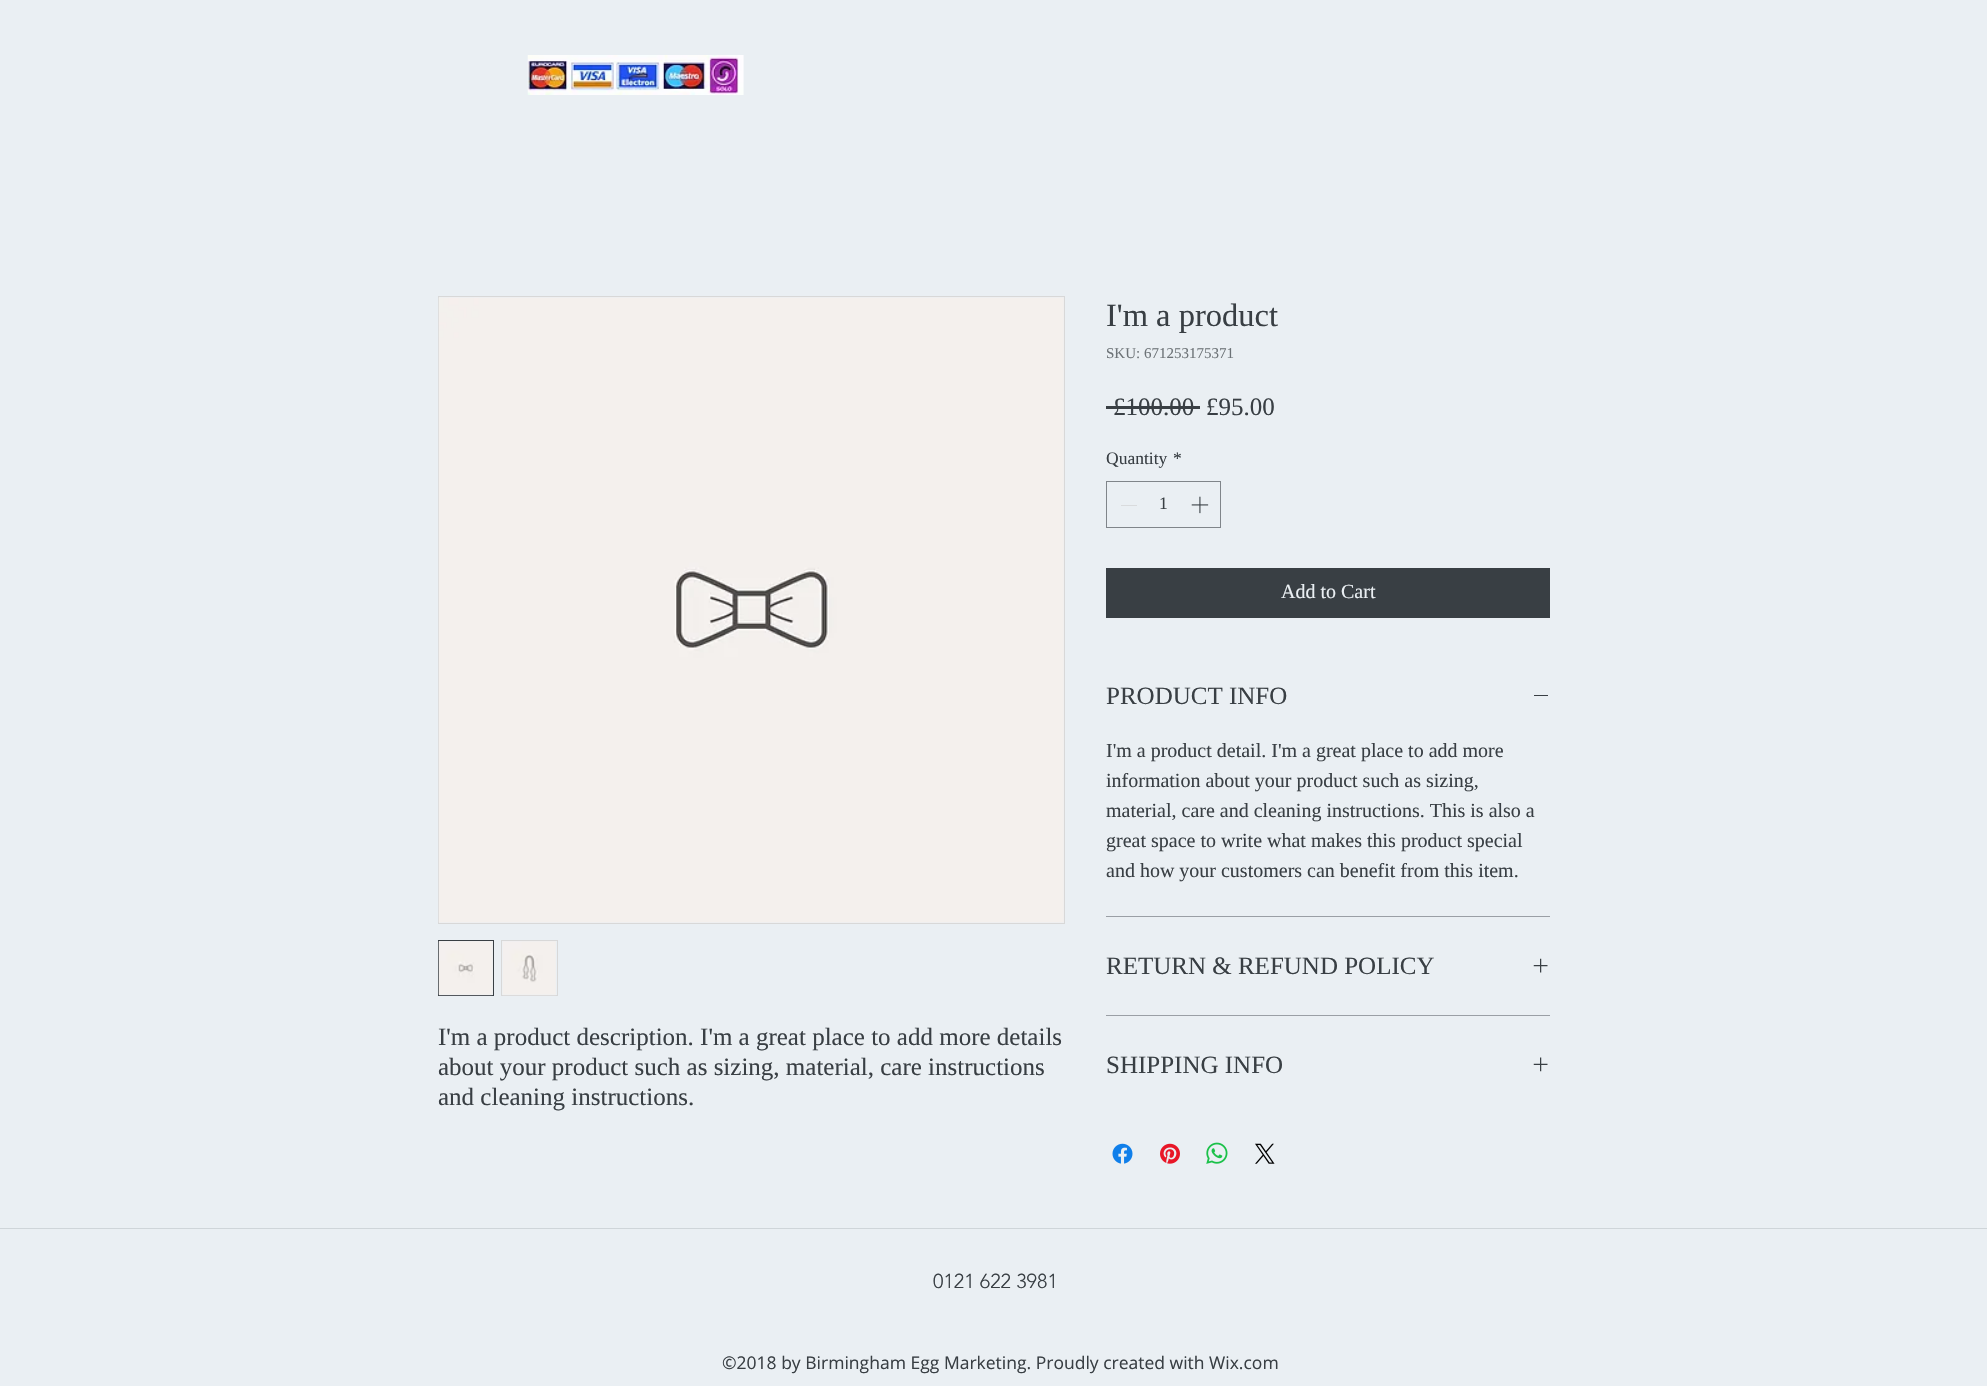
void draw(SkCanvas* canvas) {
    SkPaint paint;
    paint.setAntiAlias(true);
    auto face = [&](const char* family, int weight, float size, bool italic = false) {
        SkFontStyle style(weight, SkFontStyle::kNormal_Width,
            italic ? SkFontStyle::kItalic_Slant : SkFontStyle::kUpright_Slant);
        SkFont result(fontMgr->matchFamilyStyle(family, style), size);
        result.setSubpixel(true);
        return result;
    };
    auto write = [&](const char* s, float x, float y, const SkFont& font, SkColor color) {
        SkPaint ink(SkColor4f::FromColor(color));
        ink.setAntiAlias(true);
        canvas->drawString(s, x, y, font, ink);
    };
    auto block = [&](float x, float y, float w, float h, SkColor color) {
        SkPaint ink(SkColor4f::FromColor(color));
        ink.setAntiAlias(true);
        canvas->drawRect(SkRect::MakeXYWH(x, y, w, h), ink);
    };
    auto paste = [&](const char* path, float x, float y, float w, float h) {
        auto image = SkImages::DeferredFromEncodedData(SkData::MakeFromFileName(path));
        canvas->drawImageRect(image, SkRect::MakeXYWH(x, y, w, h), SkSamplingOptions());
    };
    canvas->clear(SkColorSetRGB(234, 239, 243));
    paste("pic1.png", 527, 55, 217, 40);
    paint.setStyle(SkPaint::kStroke_Style);
    paint.setStrokeWidth(1);
    paint.setColor(SkColorSetRGB(216, 216, 216));
    canvas->drawRect(SkRect::MakeXYWH(438.5f, 296.5f, 626, 627), paint);
    paste("pic2.png", 438, 297, 626, 626);
    paint.setColor(SkColorSetRGB(57, 63, 68));
    canvas->drawRect(SkRect::MakeXYWH(438.5f, 940.5f, 55, 55), paint);
    paste("pic3.png", 438, 941, 55, 55);
    paint.setColor(SkColorSetRGB(216, 216, 216));
    canvas->drawRect(SkRect::MakeXYWH(501.5f, 940.5f, 56, 55), paint);
    paste("pic4.png", 502, 941, 54, 55);
    auto kFont1 = face("Liberation Serif", 400, 25);
    write("I'm a product description. I'm a great place to add more details", 438, 1045, kFont1, SkColorSetRGB(57, 63, 68));
    write("about your product such as sizing, material, care instructions", 438, 1075, kFont1, SkColorSetRGB(57, 63, 68));
    write("and cleaning instructions.", 438, 1105, kFont1, SkColorSetRGB(57, 63, 68));
    auto kFont2 = face("Liberation Serif", 400, 32.5f);
    write("I'm a product", 1106, 326, kFont2, SkColorSetRGB(57, 63, 68));
    auto kFont3 = face("Liberation Serif", 400, 15);
    write("SKU: 671253175371", 1106, 358, kFont3, SkColorSetRGB(109, 115, 119));
    write("£100.00", 1113, 415, kFont1, SkColorSetRGB(57, 63, 68));
    block(1106, 406, 94, 3, SkColorSetRGB(57, 63, 68));
    write("£95.00", 1206, 415, kFont1, SkColorSetRGB(57, 63, 68));
    auto kFont4 = face("Liberation Serif", 400, 17.5f);
    write("Quantity", 1106, 464, kFont4, SkColorSetRGB(57, 63, 68));
    write("*", 1173, 464, kFont4, SkColorSetRGB(57, 63, 68));
    paint.setColor(SkColorSetRGB(128, 133, 138));
    canvas->drawRect(SkRect::MakeXYWH(1106.5f, 481.5f, 114, 46), paint);
    block(1121, 505, 16, 1, SkColorSetRGB(217, 219, 221));
    write("1", 1159, 509, kFont4, SkColorSetRGB(57, 63, 68));
    paste("pic5.png", 1191, 496, 18, 18);
    block(1106, 568, 444, 50, SkColorSetRGB(57, 63, 68));
    auto kFont5 = face("Liberation Serif", 400, 20);
    write("Add to Cart", 1281, 598, kFont5, SkColorSetRGB(234, 239, 243));
    block(1106, 916, 444, 1, SkColorSetRGB(154, 159, 165));
    write("PRODUCT INFO", 1106, 704, kFont1, SkColorSetRGB(57, 63, 68));
    block(1534, 695, 14, 1, SkColorSetRGB(57, 63, 68));
    write("I'm a product detail. I'm a great place to add more", 1106, 757, kFont5, SkColorSetRGB(57, 63, 68));
    write("information about your product such as sizing,", 1106, 787, kFont5, SkColorSetRGB(57, 63, 68));
    write("material, care and cleaning instructions. This is also a", 1106, 817, kFont5, SkColorSetRGB(57, 63, 68));
    write("great space to write what makes this product special", 1106, 847, kFont5, SkColorSetRGB(57, 63, 68));
    write("and how your customers can benefit from this item.", 1106, 877, kFont5, SkColorSetRGB(57, 63, 68));
    block(1106, 1015, 444, 1, SkColorSetRGB(154, 159, 165));
    write("RETURN & REFUND POLICY", 1106, 974, kFont1, SkColorSetRGB(57, 63, 68));
    paste("pic6.png", 1533, 958, 15, 15);
    write("SHIPPING INFO", 1106, 1073, kFont1, SkColorSetRGB(57, 63, 68));
    paste("pic7.png", 1533, 1057, 15, 15);
    paste("pic8.png", 1112, 1143, 21, 21);
    paste("pic9.png", 1160, 1143, 20, 21);
    paste("pic10.png", 1206, 1142, 22, 22);
    paste("pic11.png", 1255, 1143, 20, 21);
    block(0, 1228, 1987, 1, SkColorSetRGB(207, 213, 217));
    auto kFont6 = face("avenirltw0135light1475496", 300, 20);
    write("0121 622 3981", 933, 1288, kFont6, SkColorSetRGB(57, 63, 68));
    auto kFont7 = face("Open Sans", 400, 17.5f);
    write("©2018 by Birmingham Egg Marketing. Proudly created with Wix.com", 722, 1369, kFont7, SkColorSetRGB(57, 63, 68));
}
